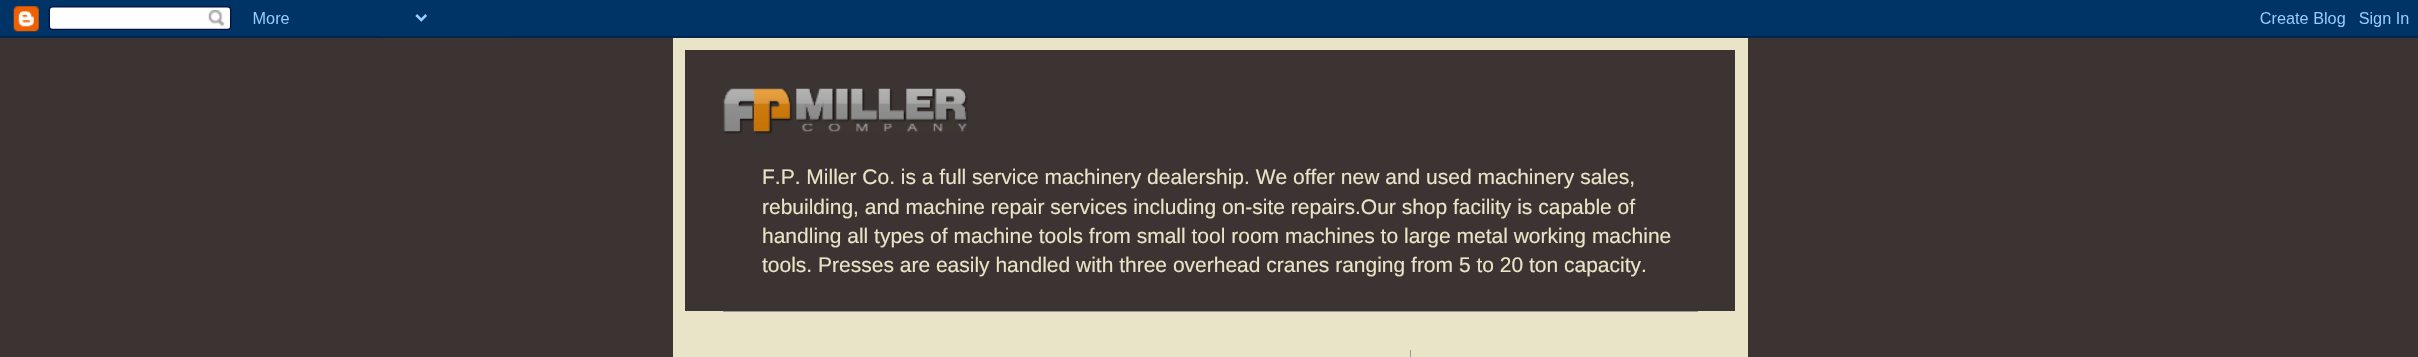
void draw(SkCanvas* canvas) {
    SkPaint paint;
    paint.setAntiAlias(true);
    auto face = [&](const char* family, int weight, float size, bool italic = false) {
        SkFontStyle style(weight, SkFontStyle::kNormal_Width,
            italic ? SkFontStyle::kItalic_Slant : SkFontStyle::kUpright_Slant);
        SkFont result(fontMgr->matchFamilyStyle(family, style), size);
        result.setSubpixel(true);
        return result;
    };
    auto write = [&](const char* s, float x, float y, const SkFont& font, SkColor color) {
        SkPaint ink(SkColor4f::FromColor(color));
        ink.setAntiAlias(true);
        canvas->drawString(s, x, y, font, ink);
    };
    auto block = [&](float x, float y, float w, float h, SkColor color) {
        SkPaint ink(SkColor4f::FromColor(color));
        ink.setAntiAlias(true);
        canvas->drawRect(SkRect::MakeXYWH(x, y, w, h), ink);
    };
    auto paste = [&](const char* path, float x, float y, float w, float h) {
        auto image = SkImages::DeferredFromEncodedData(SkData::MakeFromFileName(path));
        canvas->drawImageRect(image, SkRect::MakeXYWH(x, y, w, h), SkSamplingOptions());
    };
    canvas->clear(SkColorSetRGB(59, 52, 50));
    paste("pic1.png", 0, 0, 2418, 38);
    block(673, 38, 1075, 319, SkColorSetRGB(233, 227, 199));
    block(685, 50, 1050, 261, SkColorSetRGB(59, 52, 50));
    paste("pic2.png", 723, 88, 245, 46);
    auto kFont1 = face("Liberation Sans", 400, 21);
    write("F.P. Miller Co. is a full service machinery dealership. We offer new and used machinery sales,", 762, 184, kFont1, SkColorSetRGB(233, 227, 199));
    write("rebuilding, and machine repair services including on-site repairs.Our shop facility is capable of", 762, 214, kFont1, SkColorSetRGB(233, 227, 199));
    write("handling all types of machine tools from small tool room machines to large metal working machine", 762, 243, kFont1, SkColorSetRGB(233, 227, 199));
    write("tools. Presses are easily handled with three overhead cranes ranging from 5 to 20 ton capacity.", 762, 272, kFont1, SkColorSetRGB(233, 227, 199));
    block(723, 311, 975, 1, SkColorSetRGB(150, 150, 150));
    block(1410, 350, 1, 7, SkColorSetRGB(150, 150, 150));
}
